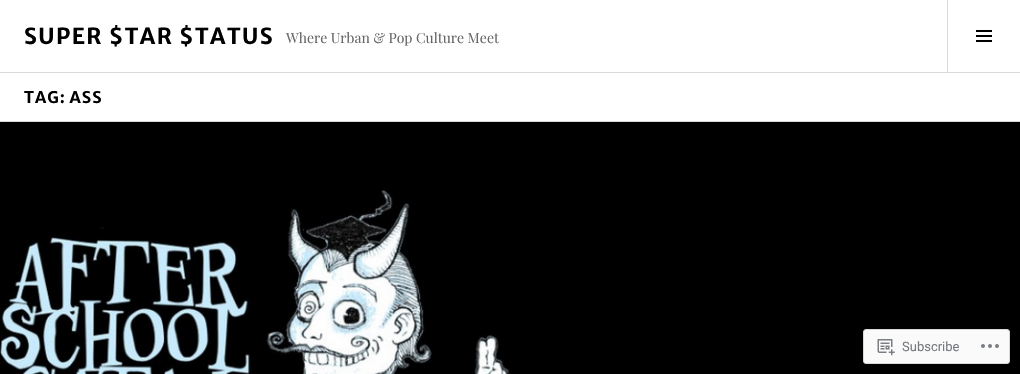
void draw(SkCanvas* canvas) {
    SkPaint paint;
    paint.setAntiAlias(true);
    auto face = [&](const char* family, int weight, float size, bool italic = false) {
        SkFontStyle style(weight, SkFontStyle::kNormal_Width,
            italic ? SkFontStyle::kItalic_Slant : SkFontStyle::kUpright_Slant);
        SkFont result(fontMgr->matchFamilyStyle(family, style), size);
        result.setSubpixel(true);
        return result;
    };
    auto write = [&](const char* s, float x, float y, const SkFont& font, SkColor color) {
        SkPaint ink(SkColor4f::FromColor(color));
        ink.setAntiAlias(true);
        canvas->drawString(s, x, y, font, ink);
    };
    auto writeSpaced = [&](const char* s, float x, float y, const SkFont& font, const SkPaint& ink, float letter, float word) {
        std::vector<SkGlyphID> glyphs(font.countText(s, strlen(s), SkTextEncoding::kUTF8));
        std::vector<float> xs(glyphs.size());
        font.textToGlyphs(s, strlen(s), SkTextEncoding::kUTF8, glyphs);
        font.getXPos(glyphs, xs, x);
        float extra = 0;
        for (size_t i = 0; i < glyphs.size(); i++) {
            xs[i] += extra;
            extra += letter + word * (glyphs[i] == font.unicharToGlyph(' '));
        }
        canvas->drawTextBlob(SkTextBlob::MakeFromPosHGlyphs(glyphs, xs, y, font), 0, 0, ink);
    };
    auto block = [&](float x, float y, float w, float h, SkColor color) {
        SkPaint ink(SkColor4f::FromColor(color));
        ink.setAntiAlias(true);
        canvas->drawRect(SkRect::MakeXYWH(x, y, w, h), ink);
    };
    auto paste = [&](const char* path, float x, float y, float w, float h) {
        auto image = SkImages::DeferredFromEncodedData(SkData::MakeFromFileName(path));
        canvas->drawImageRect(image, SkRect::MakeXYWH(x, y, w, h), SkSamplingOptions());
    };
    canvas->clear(SK_ColorWHITE);
    block(0, 72, 1020, 1, SkColorSetRGB(217, 217, 217));
    auto kFont1 = face("Merriweather Sans", 700, 22);
    paint.setColor(SK_ColorBLACK);
    writeSpaced("SUPER $TAR $TATUS", 24, 44, kFont1, paint, 1.4f, 0);
    auto kFont2 = face("Playfair Display", 400, 14);
    write("Where Urban & Pop Culture Meet", 286, 43, kFont2, SkColorSetRGB(102, 102, 102));
    block(947, 0, 1, 72, SkColorSetRGB(217, 217, 217));
    paste("pic1.png", 976, 30, 16, 12);
    block(0, 121, 1020, 1, SkColorSetRGB(217, 217, 217));
    auto kFont3 = face("Merriweather Sans", 700, 16);
    writeSpaced("TAG: ASS", 24, 103, kFont3, paint, 1, 0);
    block(0, 122, 510, 67, SK_ColorBLACK);
    paste("pic2.png", 0, 189, 510, 185);
    block(510, 122, 510, 252, SK_ColorBLACK);
    paint.setColor(SkColorSetRGB(250, 250, 250));
    canvas->drawRoundRect(SkRect::MakeXYWH(863.5f, 329.5f, 146, 34), 2.5f, 2.5f, paint);
    paint.setStyle(SkPaint::kStroke_Style);
    paint.setStrokeWidth(1);
    paint.setColor(SkColorSetRGB(216, 216, 218));
    canvas->drawRoundRect(SkRect::MakeXYWH(863.5f, 329.5f, 146, 34), 2.5f, 2.5f, paint);
    paste("pic3.png", 877, 339, 18, 17);
    auto kFont4 = face("Roboto", 400, 13);
    write("Subscribe", 902, 351, kFont4, SkColorSetRGB(118, 122, 127));
    paste("pic4.png", 981, 344, 18, 4);
}
